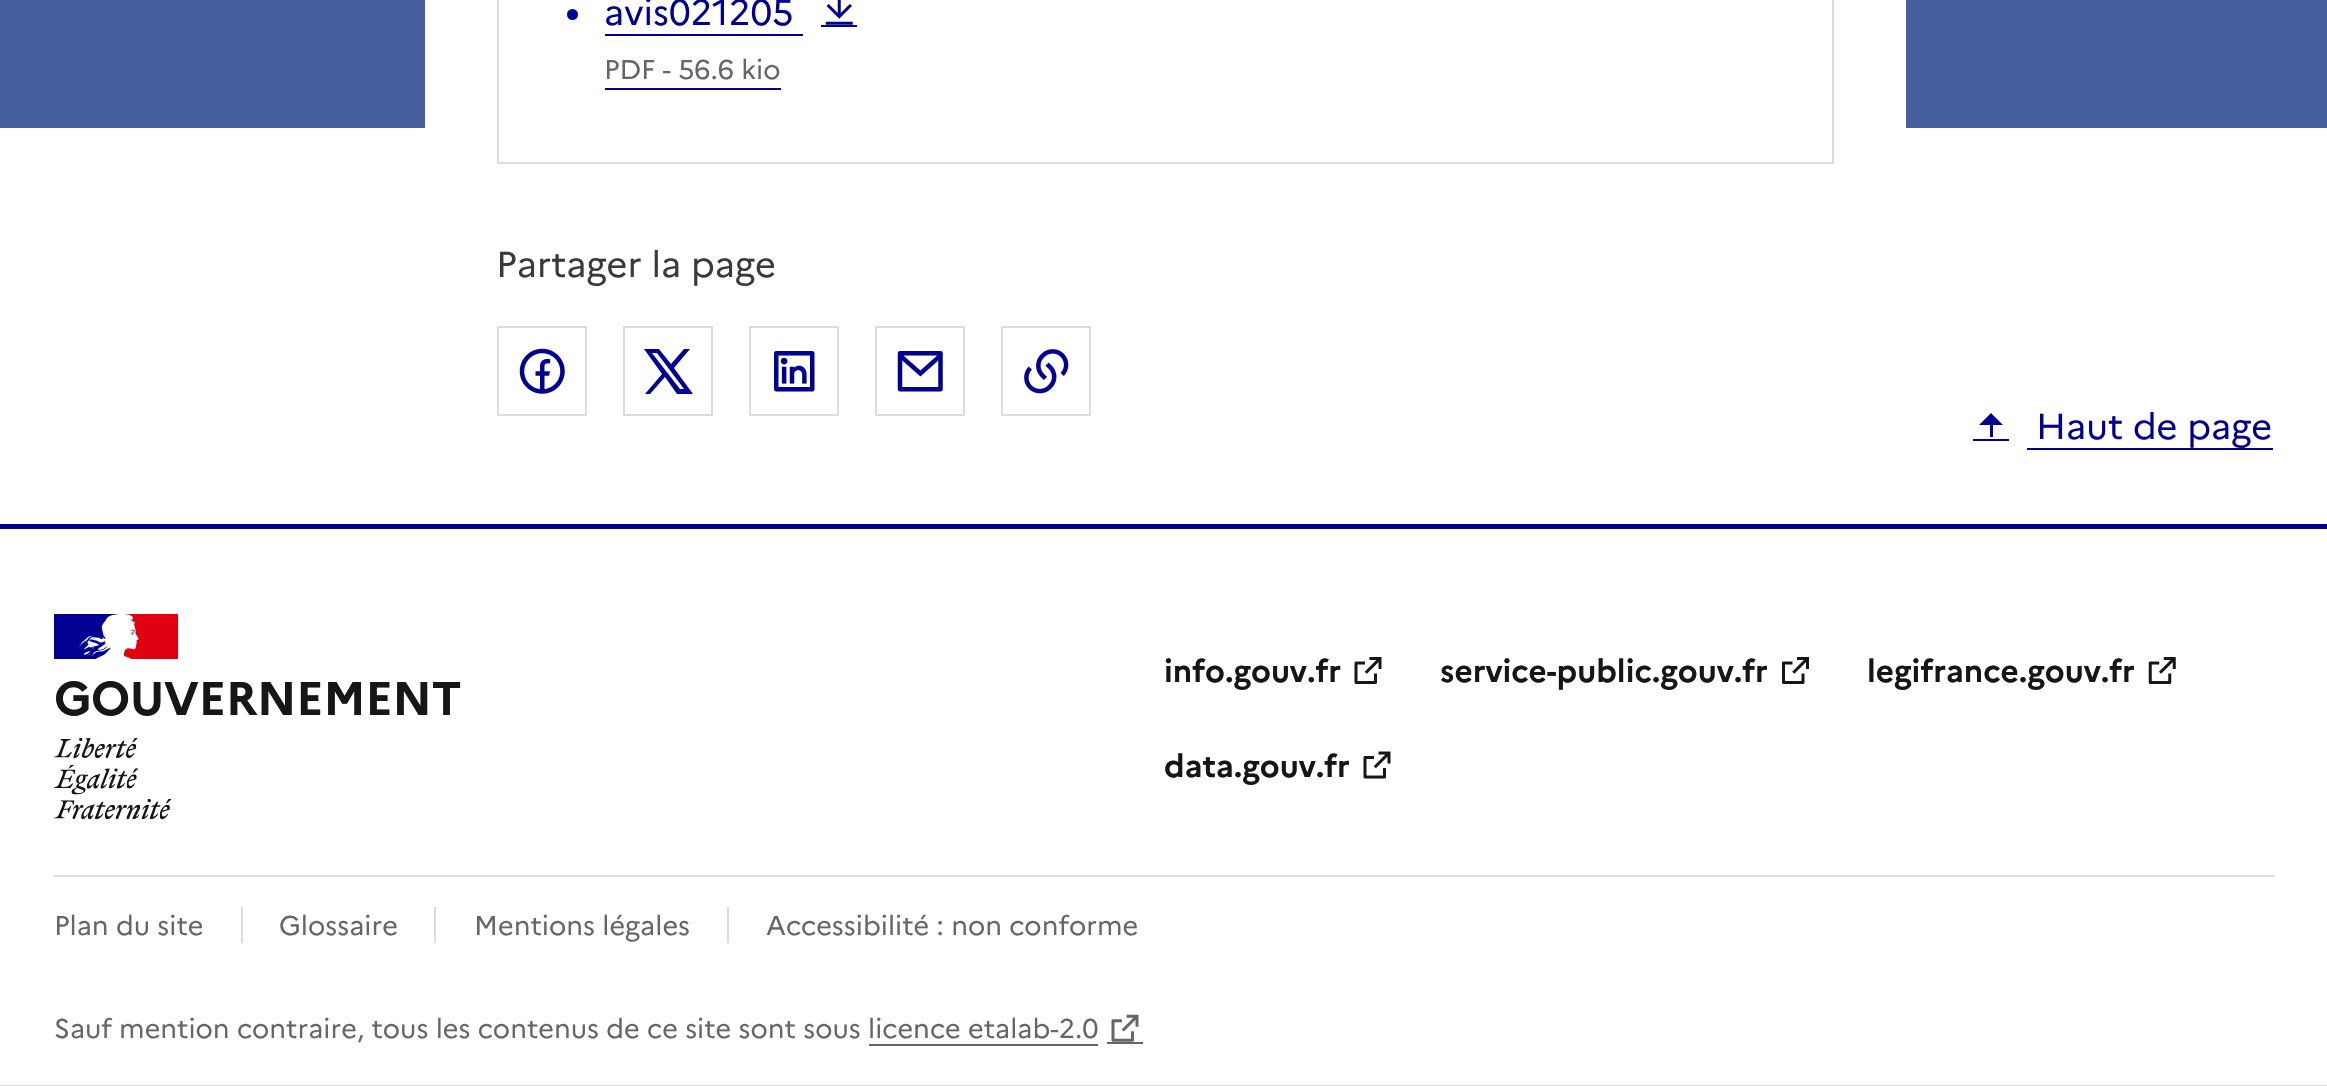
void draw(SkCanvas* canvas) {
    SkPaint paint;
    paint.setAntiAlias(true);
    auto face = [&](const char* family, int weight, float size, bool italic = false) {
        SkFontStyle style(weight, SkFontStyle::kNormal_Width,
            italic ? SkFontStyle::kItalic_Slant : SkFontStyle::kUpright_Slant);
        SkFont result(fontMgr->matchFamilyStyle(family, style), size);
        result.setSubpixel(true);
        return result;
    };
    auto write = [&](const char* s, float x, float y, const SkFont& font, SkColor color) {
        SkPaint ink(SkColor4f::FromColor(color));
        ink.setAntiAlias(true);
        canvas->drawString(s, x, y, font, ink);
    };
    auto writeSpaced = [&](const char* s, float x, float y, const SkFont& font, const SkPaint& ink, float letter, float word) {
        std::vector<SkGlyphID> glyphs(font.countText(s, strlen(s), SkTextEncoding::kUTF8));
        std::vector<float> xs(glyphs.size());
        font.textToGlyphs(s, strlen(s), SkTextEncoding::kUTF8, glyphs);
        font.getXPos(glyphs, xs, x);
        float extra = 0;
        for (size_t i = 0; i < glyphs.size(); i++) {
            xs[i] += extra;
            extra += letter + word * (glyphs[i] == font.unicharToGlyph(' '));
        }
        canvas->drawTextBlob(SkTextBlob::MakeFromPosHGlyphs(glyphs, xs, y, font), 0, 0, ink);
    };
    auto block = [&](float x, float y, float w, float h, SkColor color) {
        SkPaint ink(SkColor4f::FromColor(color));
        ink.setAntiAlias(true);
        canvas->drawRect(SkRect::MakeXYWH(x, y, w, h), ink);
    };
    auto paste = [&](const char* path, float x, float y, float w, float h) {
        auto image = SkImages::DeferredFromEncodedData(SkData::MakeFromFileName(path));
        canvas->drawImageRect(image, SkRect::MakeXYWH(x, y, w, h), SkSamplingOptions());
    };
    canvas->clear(SK_ColorWHITE);
    block(0, 0, 2327, 128, SkColorSetRGB(70, 95, 157));
    block(425, 0, 1481, 128, SK_ColorWHITE);
    paint.setStyle(SkPaint::kStroke_Style);
    paint.setStrokeWidth(2);
    paint.setColor(SkColorSetRGB(221, 221, 221));
    canvas->drawRect(SkRect::MakeXYWH(498, -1, 1335, 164), paint);
    paint.setStyle(SkPaint::kFill_Style);
    paint.setColor(SkColorSetRGB(0, 0, 145));
    canvas->drawCircle(572.5f, 14.5f, 5.5f, paint);
    block(605, 34, 198, 2, SkColorSetRGB(0, 0, 145));
    block(605, 88, 176, 2, SkColorSetRGB(0, 0, 145));
    block(821, 25, 36, 2, SkColorSetRGB(0, 0, 145));
    auto kFont1 = face("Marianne", 400, 36);
    write("avis021205", 604, 25, kFont1, SkColorSetRGB(0, 0, 145));
    paste("pic1.png", 825, 0, 28, 25);
    auto kFont2 = face("Marianne", 400, 27);
    write("PDF - 56.6 kio", 604, 79, kFont2, SkColorSetRGB(102, 102, 102));
    write("Partager la page", 496, 277, kFont1, SkColorSetRGB(58, 58, 58));
    paint.setStyle(SkPaint::kStroke_Style);
    paint.setColor(SkColorSetRGB(221, 221, 221));
    canvas->drawRect(SkRect::MakeXYWH(498, 327, 88, 88), paint);
    paste("pic2.png", 519, 348, 46, 46);
    canvas->drawRect(SkRect::MakeXYWH(624, 327, 88, 88), paint);
    paint.setStyle(SkPaint::kFill_Style);
    paint.setColor(SkColorSetRGB(0, 0, 145));
    canvas->drawPath(SkPathBuilder().moveTo(659, 349).lineTo(644, 349).lineTo(662, 374).lineTo(645, 394).lineTo(650, 394).lineTo(665, 377).lineTo(677, 394).lineTo(693, 394).lineTo(674, 368).lineTo(690, 349).lineTo(684, 349).lineTo(671, 364).close().moveTo(680, 389).lineTo(652, 353).lineTo(657, 353).lineTo(684, 389).close().detach(), paint);
    paint.setStyle(SkPaint::kStroke_Style);
    paint.setColor(SkColorSetRGB(221, 221, 221));
    canvas->drawRect(SkRect::MakeXYWH(750, 327, 88, 88), paint);
    paste("pic3.png", 774, 351, 41, 41);
    canvas->drawRect(SkRect::MakeXYWH(876, 327, 88, 88), paint);
    paste("pic4.png", 897, 351, 46, 41);
    canvas->drawRect(SkRect::MakeXYWH(1002, 327, 88, 88), paint);
    paste("pic5.png", 1024, 349, 45, 45);
    block(1973, 439, 36, 2, SkColorSetRGB(0, 0, 145));
    block(2027, 448, 246, 2, SkColorSetRGB(0, 0, 145));
    paint.setStyle(SkPaint::kFill_Style);
    paint.setColor(SkColorSetRGB(0, 0, 145));
    canvas->drawPath(SkPathBuilder().moveTo(1993, 425).lineTo(1993, 437).lineTo(1990, 437).lineTo(1990, 425).lineTo(1979, 425).lineTo(1991, 413).lineTo(2003, 425).close().detach(), paint);
    write("Haut de page", 2036, 439, kFont1, SkColorSetRGB(0, 0, 145));
    block(0, 1085, 2327, 1, SkColorSetRGB(221, 221, 221));
    block(0, 524, 2327, 5, SkColorSetRGB(0, 0, 145));
    block(54, 614, 63, 45, SkColorSetRGB(0, 0, 145));
    block(117, 614, 61, 45, SkColorSetRGB(225, 0, 15));
    paste("pic6.png", 79, 614, 60, 45);
    auto kFont3 = face("Marianne", 700, 47.25f);
    paint.setColor(SkColorSetRGB(22, 22, 22));
    writeSpaced("GOUVERNEMENT", 54, 715, kFont3, paint, -0.5f, 0);
    paste("pic7.png", 54, 738, 118, 82);
    auto kFont4 = face("Marianne", 700, 31.5f);
    write("info.gouv.fr", 1164, 682, kFont4, SkColorSetRGB(22, 22, 22));
    paste("pic8.png", 1354, 657, 28, 27);
    write("service-public.gouv.fr", 1440, 682, kFont4, SkColorSetRGB(22, 22, 22));
    paste("pic9.png", 1782, 657, 27, 27);
    write("legifrance.gouv.fr", 1867, 682, kFont4, SkColorSetRGB(22, 22, 22));
    paste("pic10.png", 2148, 657, 28, 27);
    write("data.gouv.fr", 1164, 777, kFont4, SkColorSetRGB(22, 22, 22));
    paste("pic11.png", 1363, 751, 28, 28);
    block(54, 875, 2221, 2, SkColorSetRGB(221, 221, 221));
    write("Plan du site", 54, 935, kFont2, SkColorSetRGB(102, 102, 102));
    block(241, 907, 2, 36, SkColorSetRGB(221, 221, 221));
    write("Glossaire", 279, 935, kFont2, SkColorSetRGB(102, 102, 102));
    block(434, 907, 2, 36, SkColorSetRGB(221, 221, 221));
    write("Mentions légales", 474, 935, kFont2, SkColorSetRGB(102, 102, 102));
    block(727, 907, 2, 36, SkColorSetRGB(221, 221, 221));
    write("Accessibilité : non conforme", 766, 935, kFont2, SkColorSetRGB(102, 102, 102));
    block(869, 1044, 229, 2, SkColorSetRGB(102, 102, 102));
    block(1107, 1042, 36, 2, SkColorSetRGB(102, 102, 102));
    paste("pic12.png", 1111, 1014, 28, 28);
    write("Sauf mention contraire, tous les contenus de ce site sont sous licence etalab-2.0", 54, 1038, kFont2, SkColorSetRGB(102, 102, 102));
}
